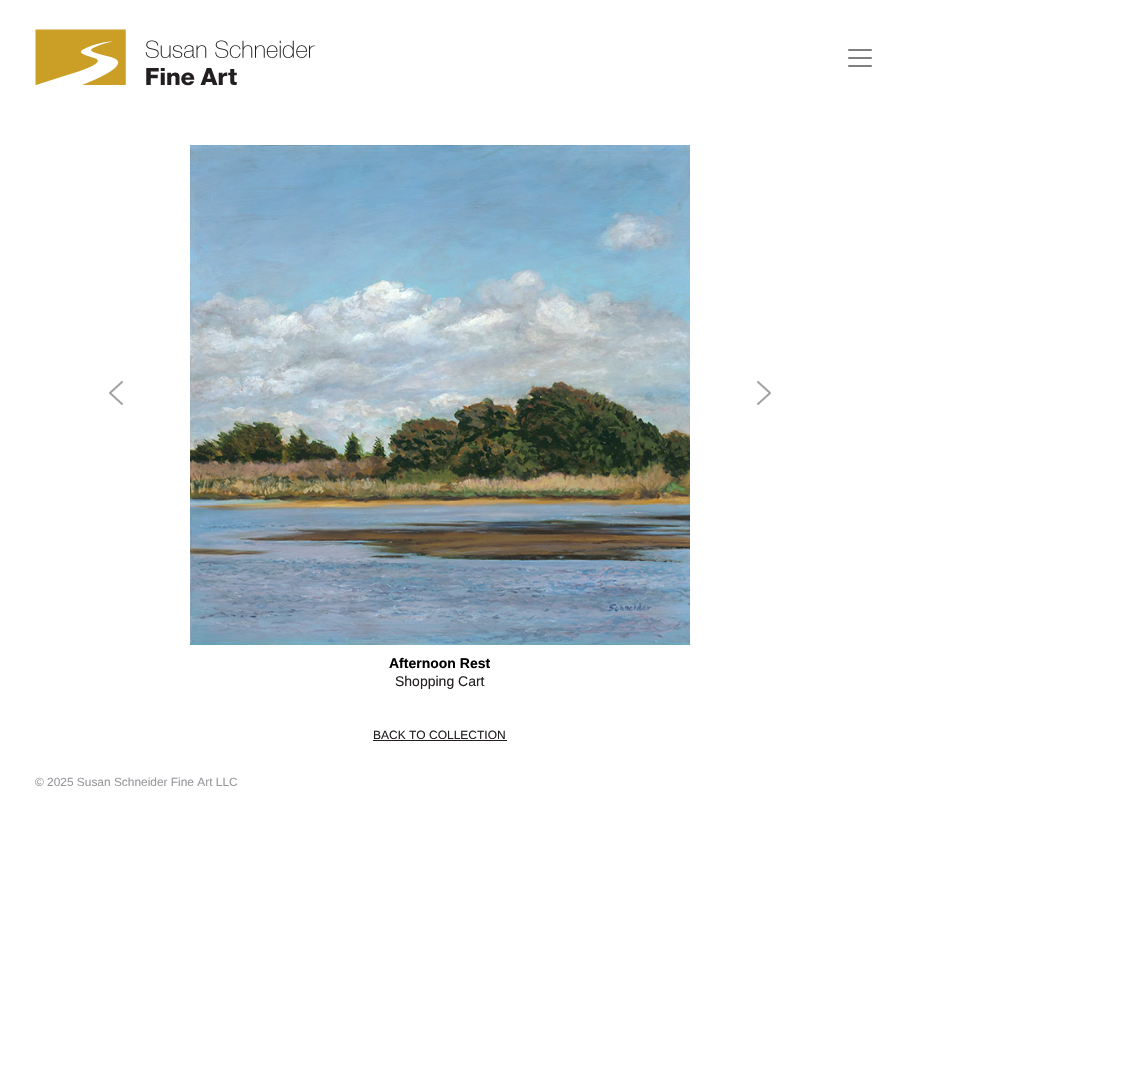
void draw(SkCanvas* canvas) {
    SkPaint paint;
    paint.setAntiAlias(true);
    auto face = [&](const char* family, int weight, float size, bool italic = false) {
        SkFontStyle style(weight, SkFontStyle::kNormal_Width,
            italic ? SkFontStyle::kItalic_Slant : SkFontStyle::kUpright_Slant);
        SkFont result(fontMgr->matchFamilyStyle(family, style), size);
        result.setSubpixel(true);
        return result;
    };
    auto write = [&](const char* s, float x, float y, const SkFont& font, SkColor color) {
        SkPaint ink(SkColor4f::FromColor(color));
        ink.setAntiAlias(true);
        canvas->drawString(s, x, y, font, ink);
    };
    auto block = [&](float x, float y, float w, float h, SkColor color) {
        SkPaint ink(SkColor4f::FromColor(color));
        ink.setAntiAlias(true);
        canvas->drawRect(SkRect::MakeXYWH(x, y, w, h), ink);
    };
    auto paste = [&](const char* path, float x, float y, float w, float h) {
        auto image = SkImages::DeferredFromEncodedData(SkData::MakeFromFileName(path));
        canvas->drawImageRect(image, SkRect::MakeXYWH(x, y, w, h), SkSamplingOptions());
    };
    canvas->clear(SK_ColorWHITE);
    paste("pic1.png", 35, 29, 280, 57);
    paste("pic2.png", 848, 49, 24, 18);
    paste("pic3.png", 109, 381, 14, 24);
    paste("pic4.png", 190, 145, 500, 500);
    paste("pic5.png", 757, 381, 14, 24);
    auto kFont1 = face("Liberation Sans", 700, 14);
    write("Afternoon Rest", 389, 668, kFont1, SK_ColorBLACK);
    auto kFont2 = face("Liberation Sans", 400, 14);
    write("Shopping Cart", 395, 686, kFont2, SkColorSetRGB(35, 31, 32));
    auto kFont3 = face("Liberation Sans", 400, 12);
    write("BACK TO COLLECTION", 373, 739, kFont3, SkColorSetRGB(35, 31, 32));
    block(373, 740, 134, 1, SkColorSetRGB(35, 31, 32));
    auto kFont4 = face("Liberation Sans", 400, 11.9f);
    write("© 2025 Susan Schneider Fine Art LLC", 35, 786, kFont4, SkColorSetRGB(153, 151, 156));
}
